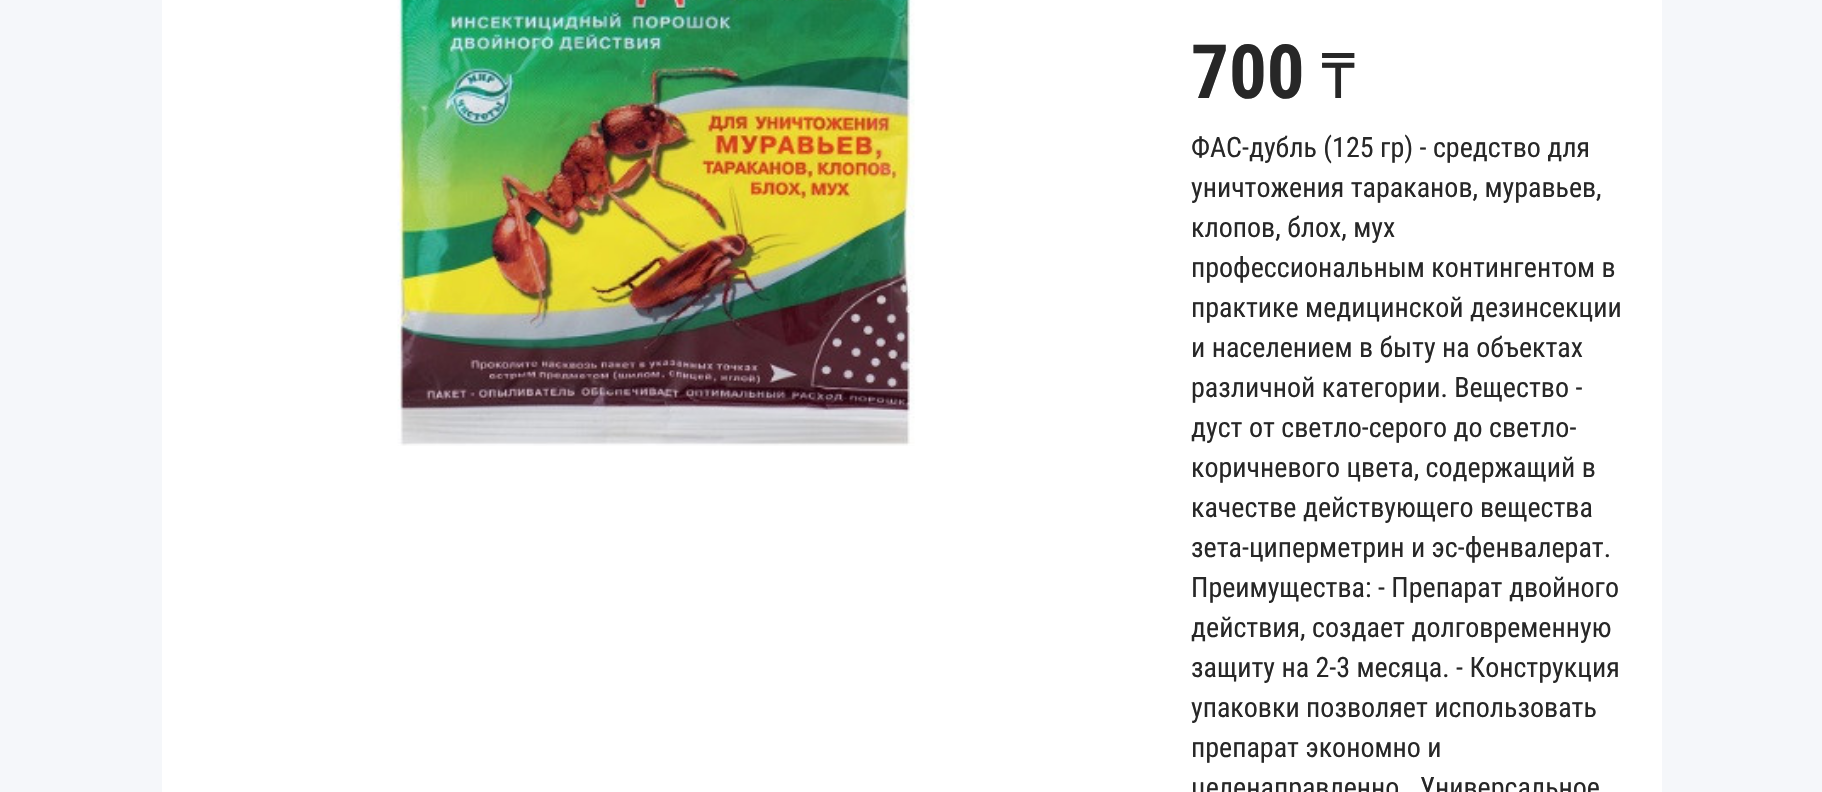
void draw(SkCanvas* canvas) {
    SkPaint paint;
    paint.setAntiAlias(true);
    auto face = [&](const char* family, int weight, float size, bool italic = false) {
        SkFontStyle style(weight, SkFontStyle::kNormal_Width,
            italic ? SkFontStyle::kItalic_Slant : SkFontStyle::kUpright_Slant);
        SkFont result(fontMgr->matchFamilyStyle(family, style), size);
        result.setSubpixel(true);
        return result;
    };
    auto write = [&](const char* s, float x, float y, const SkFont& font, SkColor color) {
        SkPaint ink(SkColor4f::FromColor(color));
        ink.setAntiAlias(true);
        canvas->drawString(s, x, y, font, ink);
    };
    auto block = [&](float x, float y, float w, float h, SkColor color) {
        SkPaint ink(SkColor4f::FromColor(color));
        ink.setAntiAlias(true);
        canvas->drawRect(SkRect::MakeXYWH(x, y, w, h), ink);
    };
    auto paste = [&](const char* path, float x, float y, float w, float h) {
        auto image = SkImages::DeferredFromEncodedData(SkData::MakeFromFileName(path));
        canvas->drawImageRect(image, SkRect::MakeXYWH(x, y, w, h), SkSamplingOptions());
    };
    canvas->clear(SkColorSetRGB(245, 247, 250));
    block(162, 0, 1500, 792, SK_ColorWHITE);
    paste("pic1.png", 397, 0, 518, 446);
    auto kFont1 = face("Roboto Condensed", 700, 75);
    write("700", 1191, 98, kFont1, SkColorSetRGB(39, 39, 39));
    auto kFont2 = face("Noto Sans", 400, 63);
    write("₸", 1321, 98, kFont2, SkColorSetRGB(39, 39, 39));
    auto kFont3 = face("Roboto Condensed", 400, 28);
    write("ФАС-дубль (125 гр) - средство для", 1191, 157, kFont3, SkColorSetRGB(39, 39, 39));
    write("уничтожения тараканов, муравьев,", 1191, 197, kFont3, SkColorSetRGB(39, 39, 39));
    write("клопов, блох, мух", 1191, 237, kFont3, SkColorSetRGB(39, 39, 39));
    write("профессиональным контингентом в", 1191, 277, kFont3, SkColorSetRGB(39, 39, 39));
    write("практике медицинской дезинсекции", 1191, 317, kFont3, SkColorSetRGB(39, 39, 39));
    write("и населением в быту на объектах", 1191, 357, kFont3, SkColorSetRGB(39, 39, 39));
    write("различной категории. Вещество -", 1191, 397, kFont3, SkColorSetRGB(39, 39, 39));
    write("дуст от светло-серого до светло-", 1191, 437, kFont3, SkColorSetRGB(39, 39, 39));
    write("коричневого цвета, содержащий в", 1191, 477, kFont3, SkColorSetRGB(39, 39, 39));
    write("качестве действующего вещества", 1191, 517, kFont3, SkColorSetRGB(39, 39, 39));
    write("зета-циперметрин и эс-фенвалерат.", 1191, 557, kFont3, SkColorSetRGB(39, 39, 39));
    write("Преимущества: - Препарат двойного", 1191, 597, kFont3, SkColorSetRGB(39, 39, 39));
    write("действия, создает долговременную", 1191, 637, kFont3, SkColorSetRGB(39, 39, 39));
    write("защиту на 2-3 месяца. - Конструкция", 1191, 677, kFont3, SkColorSetRGB(39, 39, 39));
    write("упаковки позволяет использовать", 1191, 717, kFont3, SkColorSetRGB(39, 39, 39));
    write("препарат экономно и", 1191, 757, kFont3, SkColorSetRGB(39, 39, 39));
    write("целенаправленно.  Универсальное", 1191, 797, kFont3, SkColorSetRGB(39, 39, 39));
}
